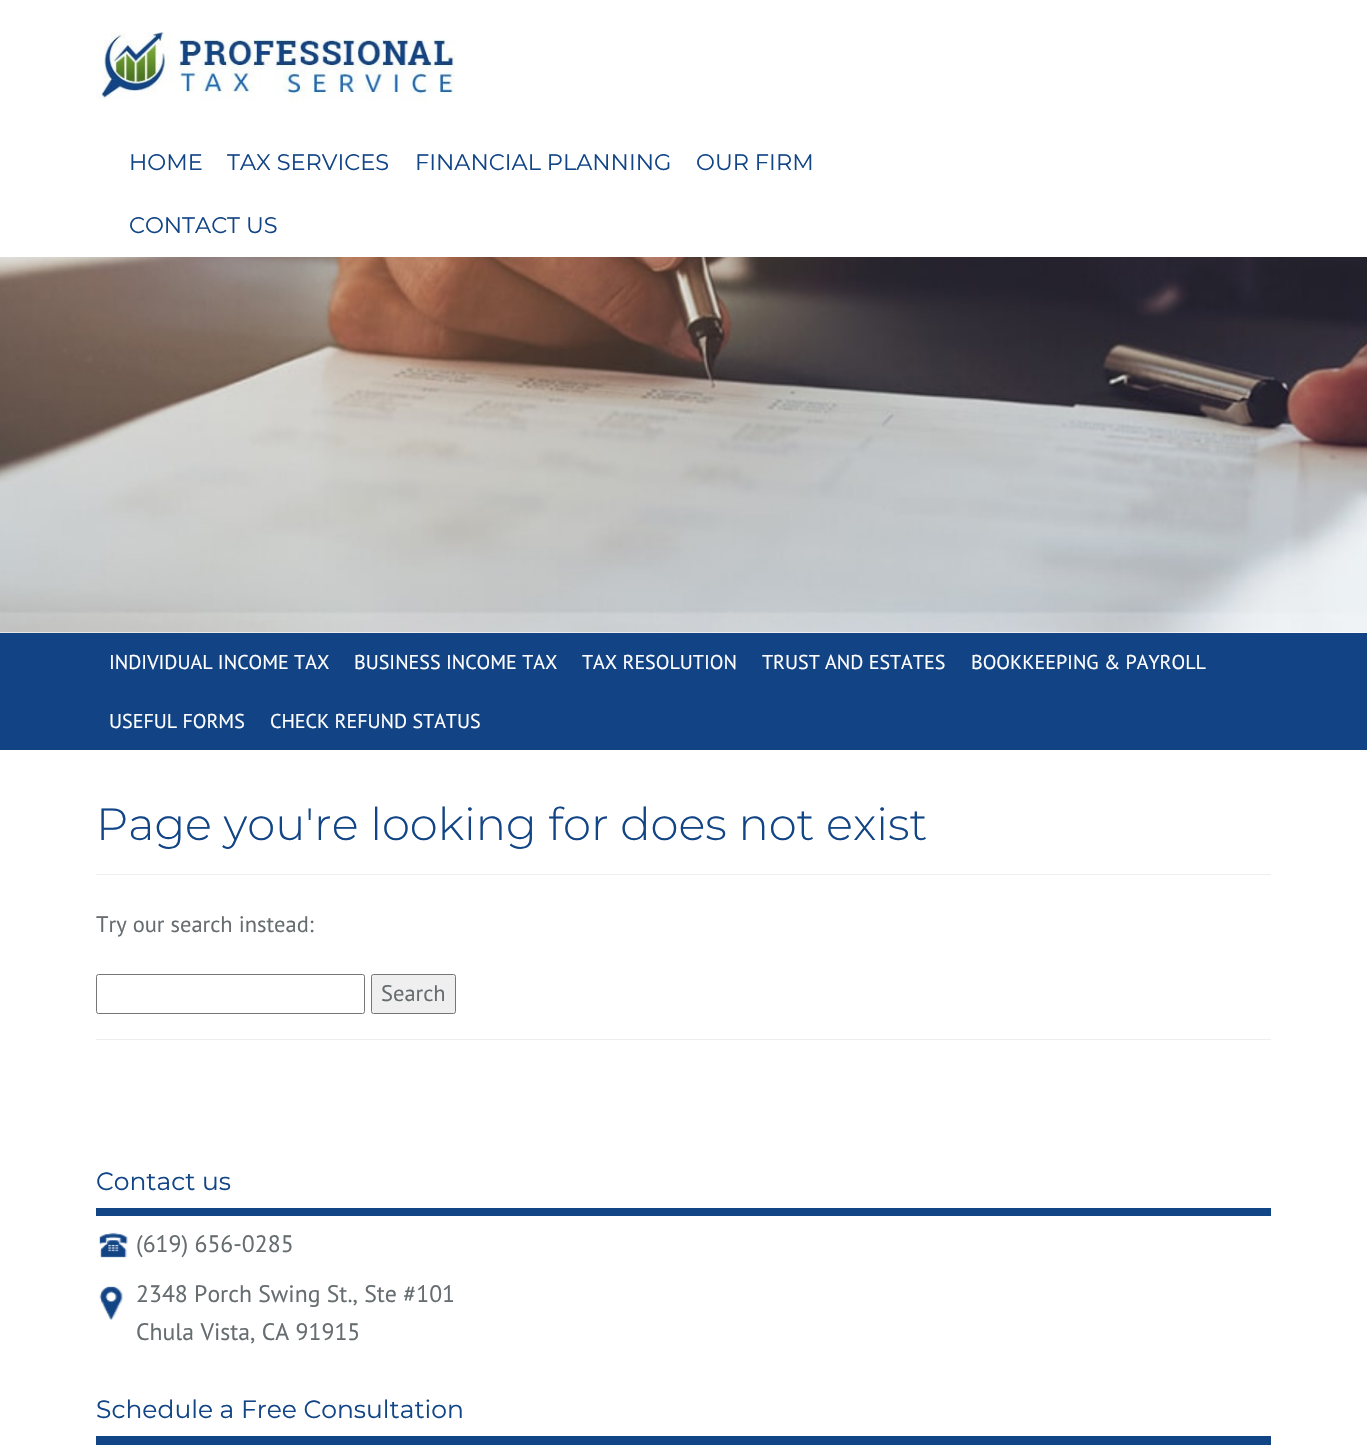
void draw(SkCanvas* canvas) {
    SkPaint paint;
    paint.setAntiAlias(true);
    auto face = [&](const char* family, int weight, float size, bool italic = false) {
        SkFontStyle style(weight, SkFontStyle::kNormal_Width,
            italic ? SkFontStyle::kItalic_Slant : SkFontStyle::kUpright_Slant);
        SkFont result(fontMgr->matchFamilyStyle(family, style), size);
        result.setSubpixel(true);
        return result;
    };
    auto write = [&](const char* s, float x, float y, const SkFont& font, SkColor color) {
        SkPaint ink(SkColor4f::FromColor(color));
        ink.setAntiAlias(true);
        canvas->drawString(s, x, y, font, ink);
    };
    auto block = [&](float x, float y, float w, float h, SkColor color) {
        SkPaint ink(SkColor4f::FromColor(color));
        ink.setAntiAlias(true);
        canvas->drawRect(SkRect::MakeXYWH(x, y, w, h), ink);
    };
    auto paste = [&](const char* path, float x, float y, float w, float h) {
        auto image = SkImages::DeferredFromEncodedData(SkData::MakeFromFileName(path));
        canvas->drawImageRect(image, SkRect::MakeXYWH(x, y, w, h), SkSamplingOptions());
    };
    canvas->clear(SK_ColorWHITE);
    paste("pic1.png", 96, 32, 359, 68);
    auto kFont1 = face("Montserrat", 400, 22.5f);
    write("HOME", 129, 170, kFont1, SkColorSetRGB(18, 69, 134));
    write("TAX SERVICES", 227, 170, kFont1, SkColorSetRGB(18, 69, 134));
    write("FINANCIAL PLANNING", 415, 170, kFont1, SkColorSetRGB(18, 69, 134));
    write("OUR FIRM", 696, 170, kFont1, SkColorSetRGB(18, 69, 134));
    write("CONTACT US", 129, 233, kFont1, SkColorSetRGB(18, 69, 134));
    paste("pic2.png", 0, 257, 1367, 376);
    block(0, 633, 1367, 117, SkColorSetRGB(18, 68, 133));
    auto kFont2 = face("PT Sans", 400, 20);
    write("INDIVIDUAL INCOME TAX", 109, 669, kFont2, SK_ColorWHITE);
    write("BUSINESS INCOME TAX", 354, 669, kFont2, SK_ColorWHITE);
    write("TAX RESOLUTION", 582, 669, kFont2, SK_ColorWHITE);
    write("TRUST AND ESTATES", 762, 669, kFont2, SK_ColorWHITE);
    write("BOOKKEEPING & PAYROLL", 971, 669, kFont2, SK_ColorWHITE);
    write("USEFUL FORMS", 109, 728, kFont2, SK_ColorWHITE);
    write("CHECK REFUND STATUS", 270, 728, kFont2, SK_ColorWHITE);
    auto kFont3 = face("Montserrat", 300, 45);
    write("Page you're looking for does not exist", 96, 840, kFont3, SkColorSetRGB(18, 69, 134));
    block(96, 874, 1175, 1, SkColorSetRGB(238, 238, 238));
    auto kFont4 = face("PT Sans", 400, 22.5f);
    write("Try our search instead:", 96, 932, kFont4, SkColorSetRGB(102, 109, 112));
    paint.setStyle(SkPaint::kStroke_Style);
    paint.setStrokeWidth(1);
    paint.setColor(SkColorSetRGB(118, 118, 118));
    canvas->drawRoundRect(SkRect::MakeXYWH(96.5f, 974.5f, 268, 39), 2, 2, paint);
    paint.setStyle(SkPaint::kFill_Style);
    paint.setColor(SkColorSetRGB(239, 239, 239));
    canvas->drawRoundRect(SkRect::MakeXYWH(371.5f, 974.5f, 84, 39), 2, 2, paint);
    paint.setStyle(SkPaint::kStroke_Style);
    paint.setColor(SkColorSetRGB(118, 118, 118));
    canvas->drawRoundRect(SkRect::MakeXYWH(371.5f, 974.5f, 84, 39), 2, 2, paint);
    write("Search", 381, 1001, kFont4, SkColorSetRGB(102, 109, 112));
    block(96, 1039, 1175, 1, SkColorSetRGB(238, 238, 238));
    block(96, 1208, 1175, 8, SkColorSetRGB(18, 69, 134));
    auto kFont5 = face("Montserrat", 400, 25);
    write("Contact us", 96, 1190, kFont5, SkColorSetRGB(18, 69, 134));
    paste("pic3.png", 99, 1232, 29, 26);
    auto kFont6 = face("PT Sans", 400, 23.75f);
    write("(619) 656-0285", 136, 1252, kFont6, SkColorSetRGB(102, 109, 112));
    paste("pic4.png", 99, 1286, 24, 35);
    write("2348 Porch Swing St., Ste #101", 136, 1302, kFont6, SkColorSetRGB(102, 109, 112));
    write("Chula Vista, CA 91915", 136, 1340, kFont6, SkColorSetRGB(102, 109, 112));
    block(96, 1436, 1175, 9, SkColorSetRGB(18, 69, 134));
    write("Schedule a Free Consultation", 96, 1418, kFont5, SkColorSetRGB(18, 69, 134));
}
